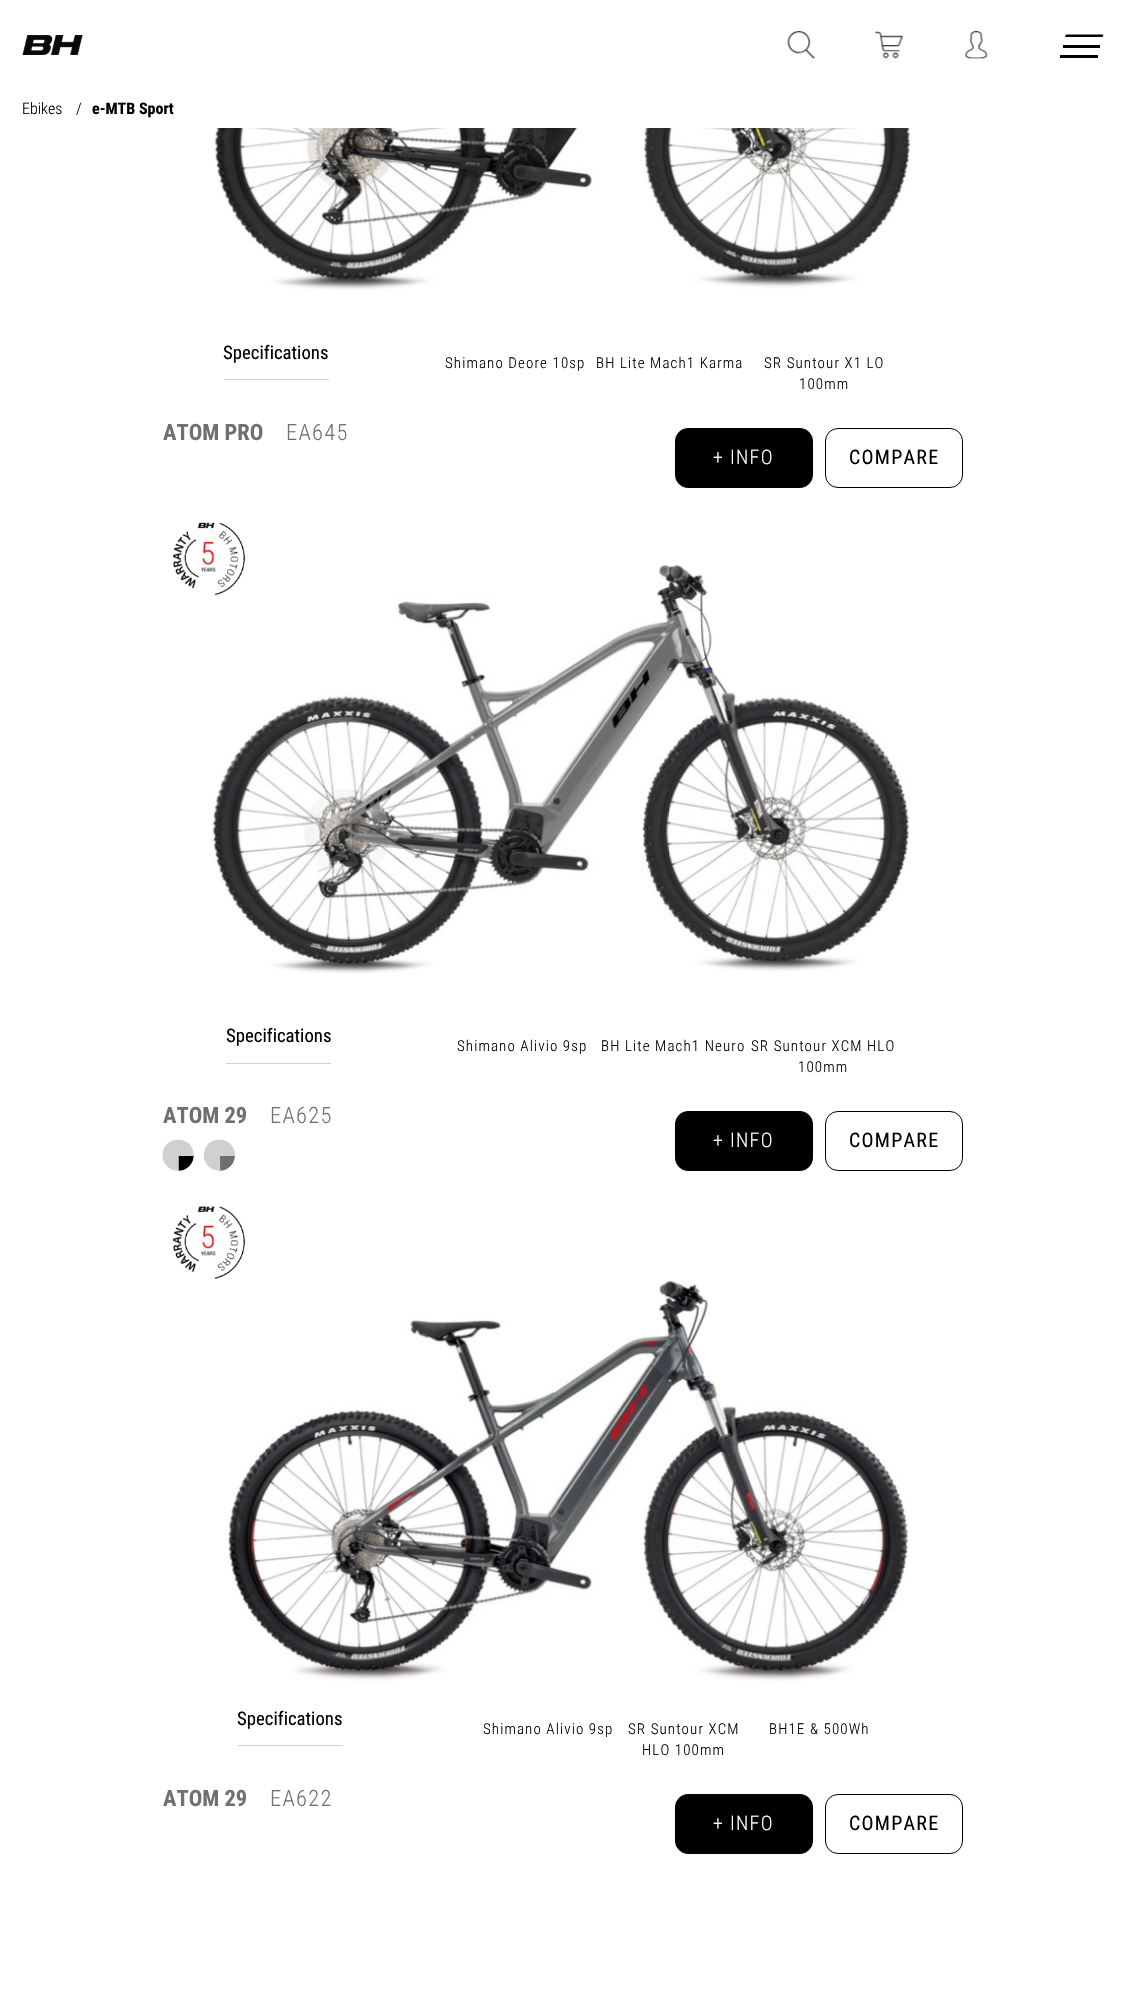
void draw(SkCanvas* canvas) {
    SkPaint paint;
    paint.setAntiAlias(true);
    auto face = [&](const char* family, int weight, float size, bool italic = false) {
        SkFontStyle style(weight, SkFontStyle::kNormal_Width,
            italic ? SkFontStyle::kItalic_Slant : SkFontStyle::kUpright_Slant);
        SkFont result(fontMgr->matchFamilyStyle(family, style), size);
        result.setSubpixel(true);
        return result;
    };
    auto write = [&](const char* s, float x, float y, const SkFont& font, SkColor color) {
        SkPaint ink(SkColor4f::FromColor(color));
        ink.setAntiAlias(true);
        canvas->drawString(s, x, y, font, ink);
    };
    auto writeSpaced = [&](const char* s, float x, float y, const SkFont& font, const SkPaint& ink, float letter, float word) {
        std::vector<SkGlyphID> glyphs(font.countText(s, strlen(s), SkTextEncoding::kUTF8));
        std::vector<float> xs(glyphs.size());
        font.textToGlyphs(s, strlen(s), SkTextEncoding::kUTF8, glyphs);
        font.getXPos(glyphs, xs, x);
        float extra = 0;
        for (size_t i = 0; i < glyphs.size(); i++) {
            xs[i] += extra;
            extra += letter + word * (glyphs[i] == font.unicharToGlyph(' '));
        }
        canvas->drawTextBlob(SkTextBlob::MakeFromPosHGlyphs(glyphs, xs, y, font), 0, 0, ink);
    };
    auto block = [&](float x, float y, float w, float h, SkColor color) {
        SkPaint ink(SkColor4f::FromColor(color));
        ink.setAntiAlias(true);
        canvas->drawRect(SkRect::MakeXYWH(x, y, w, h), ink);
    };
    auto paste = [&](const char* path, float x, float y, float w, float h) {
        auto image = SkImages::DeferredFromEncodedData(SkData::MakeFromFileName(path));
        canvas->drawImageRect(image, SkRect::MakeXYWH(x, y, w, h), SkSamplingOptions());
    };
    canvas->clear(SK_ColorWHITE);
    paste("pic1.png", 22, 35, 61, 20);
    paste("pic2.png", 787, 31, 28, 28);
    paste("pic3.png", 874, 31, 29, 28);
    paste("pic4.png", 965, 31, 23, 29);
    paint.setColor(SK_ColorBLACK);
    canvas->drawPath(SkPathBuilder().moveTo(1066, 34.5f).lineTo(1103.5f, 34.5f).lineTo(1102.5f, 37).lineTo(1065, 37).close().detach(), paint);
    block(1063, 45, 37, 3, SK_ColorBLACK);
    block(1060, 55, 38, 3, SK_ColorBLACK);
    auto kFont1 = face("Roboto Condensed", 300, 16);
    write("Ebikes", 22, 114, kFont1, SK_ColorBLACK);
    write("/", 76, 114, kFont1, SK_ColorBLACK);
    auto kFont2 = face("Roboto Condensed", 700, 16);
    write("e-MTB Sport", 92, 114, kFont2, SK_ColorBLACK);
    paste("pic5.png", 214, 128, 697, 162);
    block(224, 379, 105, 1, SkColorSetRGB(211, 211, 211));
    auto kFont3 = face("Roboto Condensed", 400, 18.75f);
    write("Specifications", 223, 359, kFont3, SK_ColorBLACK);
    auto kFont4 = face("Roboto Condensed", 300, 15);
    writeSpaced("Shimano Deore 10sp", 445, 368, kFont4, paint, 1.1f, 0);
    writeSpaced("BH Lite Mach1 Karma", 596, 368, kFont4, paint, 1.1f, 0);
    writeSpaced("SR Suntour X1 LO", 764, 368, kFont4, paint, 1.1f, 0);
    writeSpaced("100mm", 799, 389, kFont4, paint, 1.1f, 0);
    auto kFont5 = face("Roboto Condensed", 700, 22.5f);
    write("ATOM PRO", 163, 440, kFont5, SkColorSetRGB(112, 112, 112));
    auto kFont6 = face("Roboto Condensed", 300, 22.5f);
    paint.setColor(SkColorSetRGB(112, 112, 112));
    writeSpaced("EA645", 286, 440, kFont6, paint, 1.25f, 0);
    paint.setColor(SK_ColorBLACK);
    canvas->drawRoundRect(SkRect::MakeXYWH(675.5f, 428.5f, 137, 59), 12.5f, 12.5f, paint);
    paint.setStyle(SkPaint::kStroke_Style);
    paint.setStrokeWidth(1);
    canvas->drawRoundRect(SkRect::MakeXYWH(675.5f, 428.5f, 137, 59), 12.5f, 12.5f, paint);
    auto kFont7 = face("Roboto Condensed", 300, 20);
    paint.setStyle(SkPaint::kFill_Style);
    paint.setColor(SK_ColorWHITE);
    writeSpaced("+ INFO", 713, 464, kFont7, paint, 1.25f, 0);
    paint.setStyle(SkPaint::kStroke_Style);
    paint.setColor(SK_ColorBLACK);
    canvas->drawRoundRect(SkRect::MakeXYWH(825.5f, 428.5f, 137, 59), 12.5f, 12.5f, paint);
    auto kFont8 = face("Roboto Condensed", 400, 20);
    paint.setStyle(SkPaint::kFill_Style);
    writeSpaced("COMPARE", 849, 464, kFont8, paint, 1.25f, 0);
    paste("pic7.png", 211, 564, 699, 410);
    paste("pic6.png", 172, 522, 74, 74);
    block(226, 1063, 105, 1, SkColorSetRGB(211, 211, 211));
    write("Specifications", 226, 1042, kFont3, SK_ColorBLACK);
    writeSpaced("Shimano Alivio 9sp", 457, 1051, kFont4, paint, 1.1f, 0);
    writeSpaced("BH Lite Mach1 Neuro", 601, 1051, kFont4, paint, 1.1f, 0);
    writeSpaced("SR Suntour XCM HLO", 751, 1051, kFont4, paint, 1.1f, 0);
    writeSpaced("100mm", 798, 1072, kFont4, paint, 1.1f, 0);
    write("ATOM 29", 163, 1123, kFont5, SkColorSetRGB(112, 112, 112));
    paint.setColor(SkColorSetRGB(112, 112, 112));
    writeSpaced("EA625", 270, 1123, kFont6, paint, 1.25f, 0);
    paste("pic8.png", 162, 1139, 32, 32);
    paste("pic9.png", 203, 1139, 32, 32);
    paint.setColor(SK_ColorBLACK);
    canvas->drawRoundRect(SkRect::MakeXYWH(675.5f, 1111.5f, 137, 59), 12.5f, 12.5f, paint);
    paint.setStyle(SkPaint::kStroke_Style);
    canvas->drawRoundRect(SkRect::MakeXYWH(675.5f, 1111.5f, 137, 59), 12.5f, 12.5f, paint);
    paint.setStyle(SkPaint::kFill_Style);
    paint.setColor(SK_ColorWHITE);
    writeSpaced("+ INFO", 713, 1147, kFont7, paint, 1.25f, 0);
    paint.setStyle(SkPaint::kStroke_Style);
    paint.setColor(SK_ColorBLACK);
    canvas->drawRoundRect(SkRect::MakeXYWH(825.5f, 1111.5f, 137, 59), 12.5f, 12.5f, paint);
    paint.setStyle(SkPaint::kFill_Style);
    writeSpaced("COMPARE", 849, 1147, kFont8, paint, 1.25f, 0);
    paste("pic10.png", 172, 1206, 74, 73);
    paste("pic11.png", 228, 1280, 681, 402);
    block(238, 1745, 105, 1, SkColorSetRGB(211, 211, 211));
    write("Specifications", 237, 1725, kFont3, SK_ColorBLACK);
    writeSpaced("Shimano Alivio 9sp", 483, 1734, kFont4, paint, 1.1f, 0);
    writeSpaced("SR Suntour XCM", 628, 1734, kFont4, paint, 1.1f, 0);
    writeSpaced("HLO 100mm", 642, 1755, kFont4, paint, 1.1f, 0);
    writeSpaced("BH1E & 500Wh", 769, 1734, kFont4, paint, 1.1f, 0);
    write("ATOM 29", 163, 1806, kFont5, SkColorSetRGB(112, 112, 112));
    paint.setColor(SkColorSetRGB(112, 112, 112));
    writeSpaced("EA622", 270, 1806, kFont6, paint, 1.25f, 0);
    paint.setColor(SK_ColorBLACK);
    canvas->drawRoundRect(SkRect::MakeXYWH(675.5f, 1794.5f, 137, 59), 12.5f, 12.5f, paint);
    paint.setStyle(SkPaint::kStroke_Style);
    canvas->drawRoundRect(SkRect::MakeXYWH(675.5f, 1794.5f, 137, 59), 12.5f, 12.5f, paint);
    paint.setStyle(SkPaint::kFill_Style);
    paint.setColor(SK_ColorWHITE);
    writeSpaced("+ INFO", 713, 1830, kFont7, paint, 1.25f, 0);
    paint.setStyle(SkPaint::kStroke_Style);
    paint.setColor(SK_ColorBLACK);
    canvas->drawRoundRect(SkRect::MakeXYWH(825.5f, 1794.5f, 137, 59), 12.5f, 12.5f, paint);
    paint.setStyle(SkPaint::kFill_Style);
    writeSpaced("COMPARE", 849, 1830, kFont8, paint, 1.25f, 0);
}
